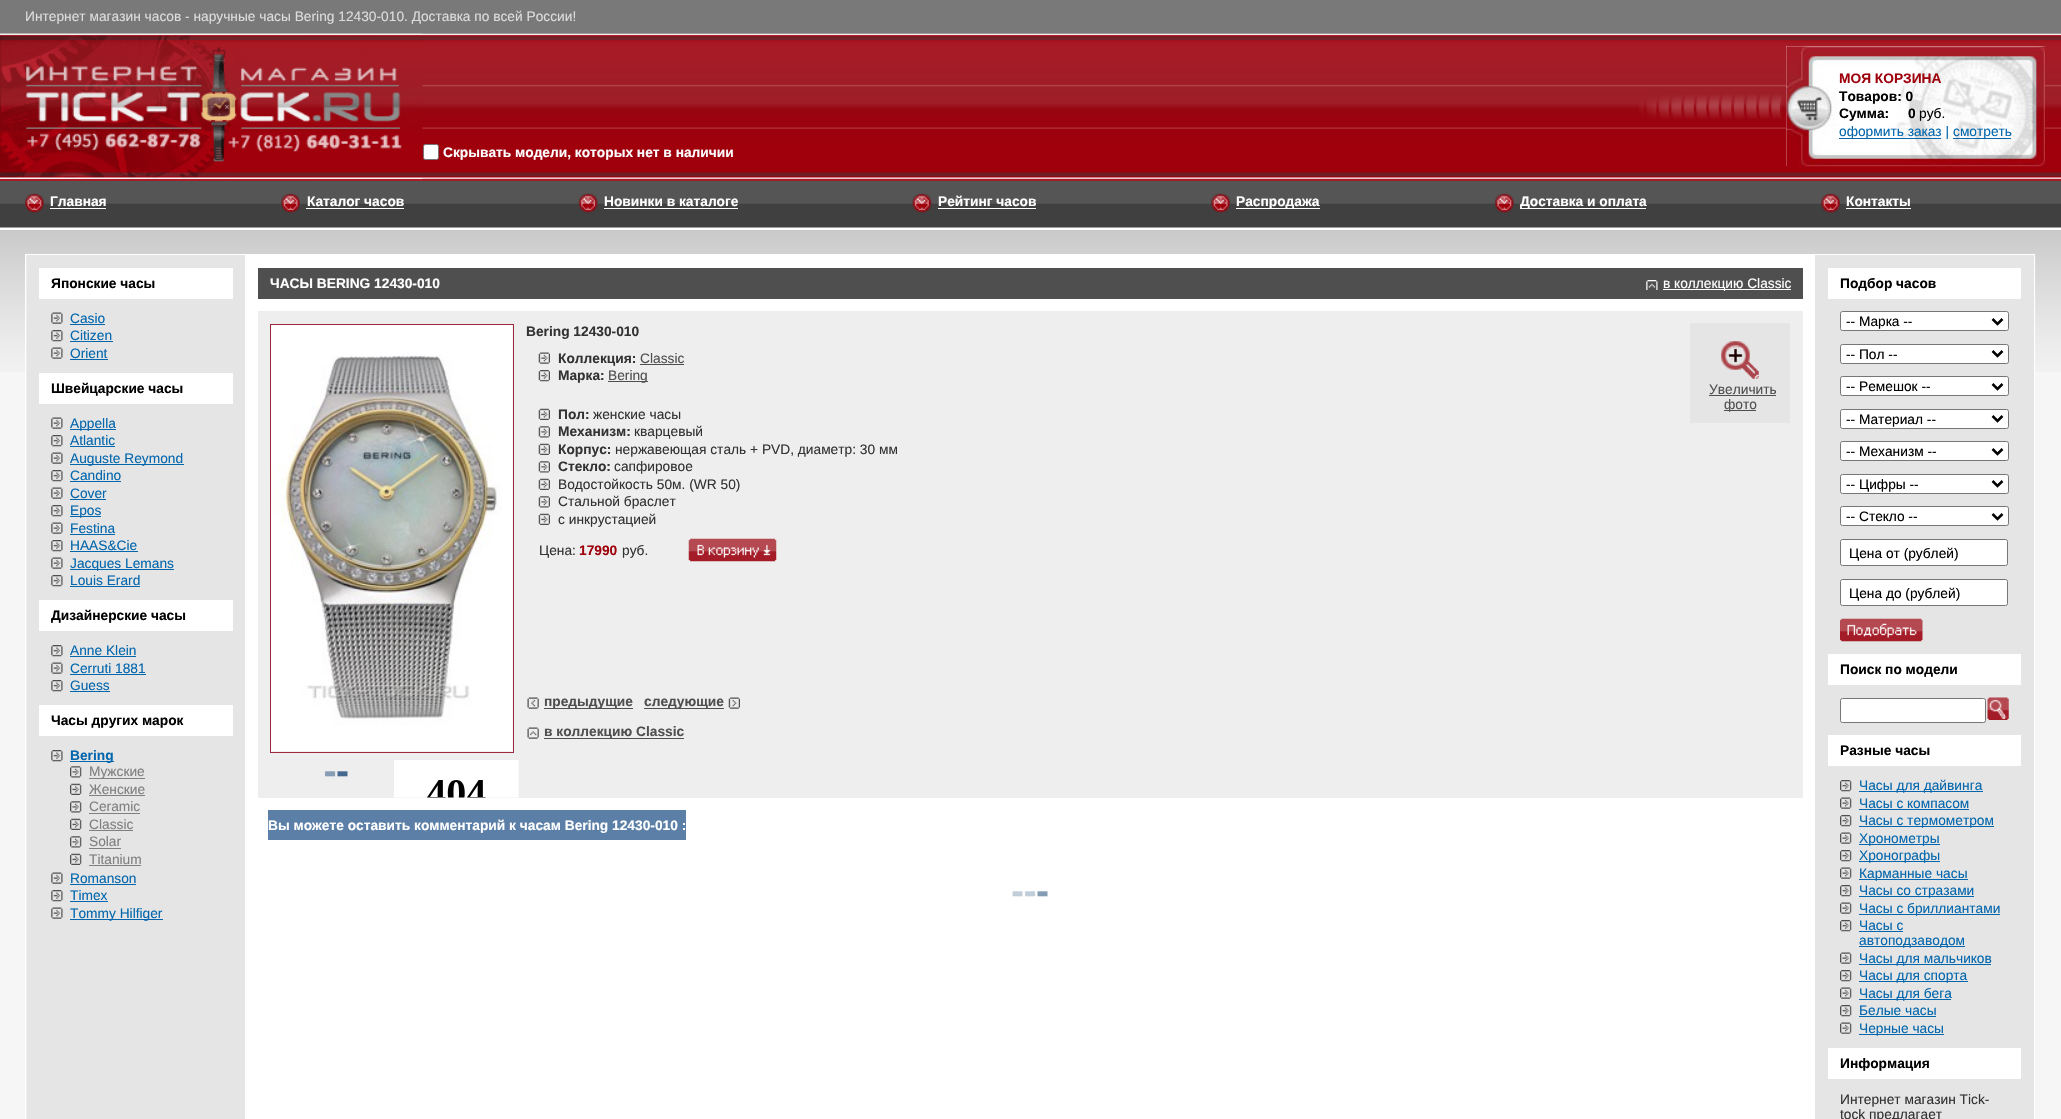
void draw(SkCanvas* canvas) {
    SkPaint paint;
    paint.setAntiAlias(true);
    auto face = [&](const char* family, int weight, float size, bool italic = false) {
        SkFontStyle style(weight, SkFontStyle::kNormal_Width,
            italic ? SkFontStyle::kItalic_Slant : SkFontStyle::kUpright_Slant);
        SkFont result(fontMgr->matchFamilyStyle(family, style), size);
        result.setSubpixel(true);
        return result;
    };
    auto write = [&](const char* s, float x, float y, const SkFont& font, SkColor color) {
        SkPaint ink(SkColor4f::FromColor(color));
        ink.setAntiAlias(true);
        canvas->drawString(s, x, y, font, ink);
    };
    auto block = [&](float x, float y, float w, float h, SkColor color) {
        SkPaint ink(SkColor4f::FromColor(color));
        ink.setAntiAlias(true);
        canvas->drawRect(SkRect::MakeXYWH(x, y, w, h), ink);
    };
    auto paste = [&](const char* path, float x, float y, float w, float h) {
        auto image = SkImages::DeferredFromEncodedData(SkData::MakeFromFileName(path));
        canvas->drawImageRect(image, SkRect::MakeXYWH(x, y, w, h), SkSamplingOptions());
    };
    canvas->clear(SkColorSetRGB(246, 246, 246));
    paste("pic1.png", 0, 230, 2061, 142);
    block(0, 0, 2061, 34, SkColorSetRGB(121, 121, 121));
    auto kFont1 = face("Liberation Sans", 400, 13.75f);
    write("Интернет магазин часов - наручные часы Bering 12430-010. Доставка по всей России!", 25, 21, kFont1, SkColorSetRGB(221, 221, 221));
    block(0, 178, 2061, 3, SkColorSetRGB(167, 27, 38));
    paste("pic2.png", 0, 33, 2061, 146);
    paste("pic3.png", 0, 33, 423, 146);
    block(1786, 46, 259, 120, SK_ColorWHITE);
    paste("pic4.png", 1786, 46, 259, 121);
    auto kFont2 = face("Liberation Sans", 700, 13.75f);
    write("МОЯ КОРЗИНА", 1839, 83, kFont2, SkColorSetRGB(158, 1, 12));
    write("Товаров: 0", 1839, 101, kFont2, SK_ColorBLACK);
    write("Сумма:", 1839, 118, kFont2, SK_ColorBLACK);
    write("0", 1908, 118, kFont2, SK_ColorBLACK);
    write("руб.", 1919, 118, kFont1, SK_ColorBLACK);
    block(1839, 138, 102, 1, SkColorSetRGB(4, 103, 173));
    write("оформить заказ |", 1839, 136, kFont1, SkColorSetRGB(4, 103, 173));
    block(1953, 138, 58, 1, SkColorSetRGB(4, 103, 173));
    write("смотреть", 1953, 136, kFont1, SkColorSetRGB(4, 103, 173));
    paste("pic5.png", 1639, 94, 143, 25);
    paint.setColor(SK_ColorWHITE);
    canvas->drawRoundRect(SkRect::MakeXYWH(423.5f, 144.5f, 15, 15), 2, 2, paint);
    paint.setStyle(SkPaint::kStroke_Style);
    paint.setStrokeWidth(1);
    paint.setColor(SkColorSetRGB(118, 118, 118));
    canvas->drawRoundRect(SkRect::MakeXYWH(423.5f, 144.5f, 15, 15), 2, 2, paint);
    write("Скрывать модели, которых нет в наличии", 443, 157, kFont2, SK_ColorWHITE);
    block(0, 181, 2061, 22, SkColorSetRGB(85, 85, 85));
    paste("pic6.png", 0, 203, 2061, 27);
    paste("pic7.png", 25, 193, 19, 20);
    write("Главная", 50, 206, kFont2, SK_ColorWHITE);
    block(50, 208, 56, 1, SK_ColorWHITE);
    paste("pic8.png", 281, 193, 19, 20);
    write("Каталог часов", 307, 206, kFont2, SK_ColorWHITE);
    block(306, 208, 98, 1, SK_ColorWHITE);
    paste("pic9.png", 578, 193, 20, 20);
    write("Новинки в каталоге", 604, 206, kFont2, SK_ColorWHITE);
    block(604, 208, 134, 1, SK_ColorWHITE);
    paste("pic10.png", 912, 193, 20, 20);
    write("Рейтинг часов", 938, 206, kFont2, SK_ColorWHITE);
    block(938, 208, 98, 1, SK_ColorWHITE);
    paste("pic8.png", 1211, 193, 19, 20);
    block(1236, 208, 84, 1, SK_ColorWHITE);
    write("Распродажа", 1236, 206, kFont2, SK_ColorWHITE);
    paste("pic11.png", 1495, 193, 19, 20);
    block(1520, 208, 126, 1, SK_ColorWHITE);
    write("Доставка и оплата", 1520, 206, kFont2, SK_ColorWHITE);
    paste("pic8.png", 1821, 193, 19, 20);
    write("Контакты", 1846, 206, kFont2, SK_ColorWHITE);
    block(1846, 208, 65, 1, SK_ColorWHITE);
    block(25, 254, 2010, 1, SK_ColorWHITE);
    paste("pic12.png", 25, 255, 220, 864);
    block(39, 268, 194, 31, SK_ColorWHITE);
    write("Японские часы", 51, 288, kFont2, SK_ColorBLACK);
    paste("pic13.png", 51, 312, 12, 12);
    write("Casio", 70, 323, kFont1, SkColorSetRGB(4, 103, 173));
    block(70, 324, 35, 1, SkColorSetRGB(4, 103, 173));
    paste("pic14.png", 51, 330, 12, 12);
    write("Citizen", 70, 340, kFont1, SkColorSetRGB(4, 103, 173));
    block(70, 341, 43, 1, SkColorSetRGB(4, 103, 173));
    paste("pic13.png", 51, 347, 12, 12);
    write("Orient", 70, 358, kFont1, SkColorSetRGB(4, 103, 173));
    block(70, 359, 38, 1, SkColorSetRGB(4, 103, 173));
    block(39, 373, 194, 31, SK_ColorWHITE);
    write("Швейцарские часы", 51, 393, kFont2, SK_ColorBLACK);
    paste("pic13.png", 51, 417, 12, 12);
    block(70, 429, 46, 1, SkColorSetRGB(4, 103, 173));
    write("Appella", 70, 428, kFont1, SkColorSetRGB(4, 103, 173));
    paste("pic14.png", 51, 435, 12, 12);
    write("Atlantic", 70, 445, kFont1, SkColorSetRGB(4, 103, 173));
    block(70, 446, 45, 1, SkColorSetRGB(4, 103, 173));
    paste("pic13.png", 51, 452, 12, 12);
    block(70, 464, 114, 1, SkColorSetRGB(4, 103, 173));
    write("Auguste Reymond", 70, 463, kFont1, SkColorSetRGB(4, 103, 173));
    paste("pic14.png", 51, 470, 12, 12);
    write("Candino", 70, 480, kFont1, SkColorSetRGB(4, 103, 173));
    block(70, 481, 51, 1, SkColorSetRGB(4, 103, 173));
    paste("pic13.png", 51, 487, 12, 12);
    write("Cover", 70, 498, kFont1, SkColorSetRGB(4, 103, 173));
    block(70, 499, 36, 1, SkColorSetRGB(4, 103, 173));
    paste("pic14.png", 51, 505, 12, 12);
    block(70, 516, 31, 1, SkColorSetRGB(4, 103, 173));
    write("Epos", 70, 515, kFont1, SkColorSetRGB(4, 103, 173));
    paste("pic13.png", 51, 522, 12, 12);
    write("Festina", 70, 533, kFont1, SkColorSetRGB(4, 103, 173));
    block(70, 534, 45, 1, SkColorSetRGB(4, 103, 173));
    paste("pic14.png", 51, 540, 12, 12);
    write("HAAS&Cie", 70, 550, kFont1, SkColorSetRGB(4, 103, 173));
    block(70, 551, 68, 1, SkColorSetRGB(4, 103, 173));
    paste("pic13.png", 51, 557, 12, 12);
    block(70, 569, 104, 1, SkColorSetRGB(4, 103, 173));
    write("Jacques Lemans", 70, 568, kFont1, SkColorSetRGB(4, 103, 173));
    paste("pic14.png", 51, 575, 12, 12);
    write("Louis Erard", 70, 585, kFont1, SkColorSetRGB(4, 103, 173));
    block(70, 586, 70, 1, SkColorSetRGB(4, 103, 173));
    block(39, 600, 194, 31, SK_ColorWHITE);
    write("Дизайнерские часы", 51, 620, kFont2, SK_ColorBLACK);
    paste("pic14.png", 51, 645, 12, 12);
    write("Anne Klein", 70, 655, kFont1, SkColorSetRGB(4, 103, 173));
    block(70, 656, 66, 1, SkColorSetRGB(4, 103, 173));
    paste("pic13.png", 51, 662, 12, 12);
    write("Cerruti 1881", 70, 673, kFont1, SkColorSetRGB(4, 103, 173));
    block(70, 674, 76, 1, SkColorSetRGB(4, 103, 173));
    paste("pic14.png", 51, 680, 12, 12);
    write("Guess", 70, 690, kFont1, SkColorSetRGB(4, 103, 173));
    block(70, 691, 40, 1, SkColorSetRGB(4, 103, 173));
    block(39, 705, 194, 31, SK_ColorWHITE);
    write("Часы других марок", 51, 725, kFont2, SK_ColorBLACK);
    paste("pic14.png", 51, 750, 12, 12);
    block(70, 761, 44, 1, SkColorSetRGB(4, 103, 173));
    write("Bering", 70, 760, kFont2, SkColorSetRGB(4, 103, 173));
    paste("pic15.png", 70, 766, 12, 12);
    block(89, 778, 56, 1, SkColorSetRGB(128, 128, 128));
    write("Мужские", 89, 776, kFont1, SkColorSetRGB(128, 128, 128));
    paste("pic16.png", 70, 783, 12, 12);
    write("Женские", 89, 794, kFont1, SkColorSetRGB(128, 128, 128));
    block(89, 795, 56, 1, SkColorSetRGB(128, 128, 128));
    paste("pic15.png", 70, 801, 12, 12);
    write("Ceramic", 89, 811, kFont1, SkColorSetRGB(128, 128, 128));
    block(89, 813, 51, 1, SkColorSetRGB(128, 128, 128));
    paste("pic16.png", 70, 818, 12, 12);
    write("Classic", 89, 829, kFont1, SkColorSetRGB(128, 128, 128));
    block(89, 830, 44, 1, SkColorSetRGB(128, 128, 128));
    paste("pic15.png", 70, 836, 12, 12);
    write("Solar", 89, 846, kFont1, SkColorSetRGB(128, 128, 128));
    block(89, 848, 32, 1, SkColorSetRGB(128, 128, 128));
    paste("pic16.png", 70, 853, 12, 12);
    write("Titanium", 89, 864, kFont1, SkColorSetRGB(128, 128, 128));
    block(89, 865, 52, 1, SkColorSetRGB(128, 128, 128));
    paste("pic13.png", 51, 872, 12, 12);
    write("Romanson", 70, 883, kFont1, SkColorSetRGB(4, 103, 173));
    block(70, 884, 66, 1, SkColorSetRGB(4, 103, 173));
    paste("pic14.png", 51, 890, 12, 12);
    write("Timex", 70, 900, kFont1, SkColorSetRGB(4, 103, 173));
    block(70, 901, 38, 1, SkColorSetRGB(4, 103, 173));
    paste("pic13.png", 51, 907, 12, 12);
    block(70, 919, 93, 1, SkColorSetRGB(4, 103, 173));
    write("Tommy Hilfiger", 70, 918, kFont1, SkColorSetRGB(4, 103, 173));
    block(245, 255, 1570, 864, SK_ColorWHITE);
    block(258, 268, 1545, 31, SkColorSetRGB(79, 79, 79));
    write("ЧАСЫ BERING 12430-010", 270, 288, kFont2, SK_ColorWHITE);
    paste("pic17.png", 1646, 280, 12, 10);
    block(1663, 289, 128, 1, SK_ColorWHITE);
    write("в коллекцию Classic", 1663, 288, kFont1, SK_ColorWHITE);
    block(258, 311, 1545, 487, SkColorSetRGB(238, 238, 238));
    paint.setColor(SkColorSetRGB(158, 40, 61));
    canvas->drawRect(SkRect::MakeXYWH(270.5f, 324.5f, 243, 428), paint);
    paste("pic18.png", 271, 325, 242, 427);
    write("Bering 12430-010", 526, 336, kFont2, SkColorSetRGB(51, 51, 51));
    paste("pic19.png", 538, 352, 12, 12);
    write("Коллекция:", 558, 363, kFont2, SkColorSetRGB(51, 51, 51));
    write("Classic", 640, 363, kFont1, SkColorSetRGB(79, 79, 79));
    block(640, 364, 44, 1, SkColorSetRGB(79, 79, 79));
    paste("pic20.png", 538, 370, 12, 12);
    write("Марка:", 558, 380, kFont2, SkColorSetRGB(51, 51, 51));
    block(608, 381, 40, 1, SkColorSetRGB(79, 79, 79));
    write("Bering", 608, 380, kFont1, SkColorSetRGB(79, 79, 79));
    block(1690, 323, 100, 100, SkColorSetRGB(229, 229, 229));
    paste("pic21.png", 1721, 341, 38, 38);
    write("Увеличить", 1709, 394, kFont1, SkColorSetRGB(79, 79, 79));
    block(1709, 395, 67, 1, SkColorSetRGB(79, 79, 79));
    block(1724, 410, 32, 1, SkColorSetRGB(79, 79, 79));
    write("фото", 1724, 409, kFont1, SkColorSetRGB(79, 79, 79));
    paste("pic22.png", 538, 408, 12, 12);
    write("Пол:", 558, 419, kFont2, SkColorSetRGB(51, 51, 51));
    write("женские часы", 593, 419, kFont1, SkColorSetRGB(51, 51, 51));
    paste("pic23.png", 538, 426, 12, 12);
    write("Механизм:", 558, 436, kFont2, SkColorSetRGB(51, 51, 51));
    write("кварцевый", 634, 436, kFont1, SkColorSetRGB(51, 51, 51));
    paste("pic22.png", 538, 443, 12, 12);
    write("Корпус:", 558, 454, kFont2, SkColorSetRGB(51, 51, 51));
    write("нержавеющая сталь + PVD, диаметр: 30 мм", 615, 454, kFont1, SkColorSetRGB(51, 51, 51));
    paste("pic23.png", 538, 461, 12, 12);
    write("Стекло:", 558, 471, kFont2, SkColorSetRGB(51, 51, 51));
    write("сапфировое", 614, 471, kFont1, SkColorSetRGB(51, 51, 51));
    paste("pic22.png", 538, 478, 12, 12);
    write("Водостойкость 50м. (WR 50)", 558, 489, kFont1, SkColorSetRGB(51, 51, 51));
    paste("pic23.png", 538, 496, 12, 12);
    write("Стальной браслет", 558, 506, kFont1, SkColorSetRGB(51, 51, 51));
    paste("pic22.png", 538, 513, 12, 12);
    write("с инкрустацией", 558, 524, kFont1, SkColorSetRGB(51, 51, 51));
    write("Цена:", 539, 555, kFont1, SkColorSetRGB(51, 51, 51));
    write("17990", 579, 555, kFont2, SkColorSetRGB(158, 1, 12));
    write("руб.", 622, 555, kFont1, SkColorSetRGB(51, 51, 51));
    paste("pic24.png", 688, 538, 89, 24);
    paste("pic25.png", 527, 697, 12, 12);
    block(544, 708, 89, 1, SkColorSetRGB(79, 79, 79));
    write("предыдущие", 544, 706, kFont2, SkColorSetRGB(79, 79, 79));
    block(644, 708, 80, 1, SkColorSetRGB(79, 79, 79));
    write("следующие", 644, 706, kFont2, SkColorSetRGB(79, 79, 79));
    paste("pic26.png", 728, 697, 12, 12);
    paste("pic27.png", 527, 727, 12, 12);
    block(544, 738, 140, 1, SkColorSetRGB(79, 79, 79));
    write("в коллекцию Classic", 544, 736, kFont2, SkColorSetRGB(79, 79, 79));
    paste("pic28.png", 324, 771, 24, 6);
    paste("pic29.png", 394, 760, 125, 38);
    block(268, 810, 418, 30, SkColorSetRGB(91, 127, 166));
    write("Вы можете оставить комментарий к часам Bering 12430-010 :", 268, 830, kFont2, SK_ColorWHITE);
    paste("pic30.png", 1012, 891, 36, 6);
    paste("pic31.png", 2034, 255, 2, 864);
    block(1815, 255, 219, 864, SkColorSetRGB(229, 229, 229));
    block(1828, 268, 193, 31, SK_ColorWHITE);
    write("Подбор часов", 1840, 288, kFont2, SK_ColorBLACK);
    paint.setStyle(SkPaint::kFill_Style);
    paint.setColor(SK_ColorWHITE);
    canvas->drawRoundRect(SkRect::MakeXYWH(1840.5f, 311.5f, 168, 19), 2, 2, paint);
    paint.setStyle(SkPaint::kStroke_Style);
    paint.setColor(SkColorSetRGB(118, 118, 118));
    canvas->drawRoundRect(SkRect::MakeXYWH(1840.5f, 311.5f, 168, 19), 2, 2, paint);
    paint.setStrokeWidth(2.5f);
    paint.setColor(SK_ColorBLACK);
    canvas->drawPath(SkPathBuilder().moveTo(1992.5f, 319).lineTo(1997.5f, 324).lineTo(2002.5f, 319).detach(), paint);
    write("-- Марка --", 1846, 326, kFont1, SK_ColorBLACK);
    paint.setStyle(SkPaint::kFill_Style);
    paint.setColor(SK_ColorWHITE);
    canvas->drawRoundRect(SkRect::MakeXYWH(1840.5f, 344.5f, 168, 19), 2, 2, paint);
    paint.setStyle(SkPaint::kStroke_Style);
    paint.setStrokeWidth(1);
    paint.setColor(SkColorSetRGB(118, 118, 118));
    canvas->drawRoundRect(SkRect::MakeXYWH(1840.5f, 344.5f, 168, 19), 2, 2, paint);
    paint.setStrokeWidth(2.5f);
    paint.setColor(SK_ColorBLACK);
    canvas->drawPath(SkPathBuilder().moveTo(1992.5f, 351).lineTo(1997.5f, 356).lineTo(2002.5f, 351).detach(), paint);
    write("-- Пол --", 1846, 359, kFont1, SK_ColorBLACK);
    paint.setStyle(SkPaint::kFill_Style);
    paint.setColor(SK_ColorWHITE);
    canvas->drawRoundRect(SkRect::MakeXYWH(1840.5f, 376.5f, 168, 19), 2, 2, paint);
    paint.setStyle(SkPaint::kStroke_Style);
    paint.setStrokeWidth(1);
    paint.setColor(SkColorSetRGB(118, 118, 118));
    canvas->drawRoundRect(SkRect::MakeXYWH(1840.5f, 376.5f, 168, 19), 2, 2, paint);
    paint.setStrokeWidth(2.5f);
    paint.setColor(SK_ColorBLACK);
    canvas->drawPath(SkPathBuilder().moveTo(1992.5f, 384).lineTo(1997.5f, 389).lineTo(2002.5f, 384).detach(), paint);
    write("-- Ремешок --", 1846, 391, kFont1, SK_ColorBLACK);
    paint.setStyle(SkPaint::kFill_Style);
    paint.setColor(SK_ColorWHITE);
    canvas->drawRoundRect(SkRect::MakeXYWH(1840.5f, 409.5f, 168, 19), 2, 2, paint);
    paint.setStyle(SkPaint::kStroke_Style);
    paint.setStrokeWidth(1);
    paint.setColor(SkColorSetRGB(118, 118, 118));
    canvas->drawRoundRect(SkRect::MakeXYWH(1840.5f, 409.5f, 168, 19), 2, 2, paint);
    paint.setStrokeWidth(2.5f);
    paint.setColor(SK_ColorBLACK);
    canvas->drawPath(SkPathBuilder().moveTo(1992.5f, 416).lineTo(1997.5f, 421).lineTo(2002.5f, 416).detach(), paint);
    write("-- Материал --", 1846, 424, kFont1, SK_ColorBLACK);
    paint.setStyle(SkPaint::kFill_Style);
    paint.setColor(SK_ColorWHITE);
    canvas->drawRoundRect(SkRect::MakeXYWH(1840.5f, 441.5f, 168, 19), 2, 2, paint);
    paint.setStyle(SkPaint::kStroke_Style);
    paint.setStrokeWidth(1);
    paint.setColor(SkColorSetRGB(118, 118, 118));
    canvas->drawRoundRect(SkRect::MakeXYWH(1840.5f, 441.5f, 168, 19), 2, 2, paint);
    paint.setStrokeWidth(2.5f);
    paint.setColor(SK_ColorBLACK);
    canvas->drawPath(SkPathBuilder().moveTo(1992.5f, 449).lineTo(1997.5f, 454).lineTo(2002.5f, 449).detach(), paint);
    write("-- Механизм --", 1846, 456, kFont1, SK_ColorBLACK);
    paint.setStyle(SkPaint::kFill_Style);
    paint.setColor(SK_ColorWHITE);
    canvas->drawRoundRect(SkRect::MakeXYWH(1840.5f, 474.5f, 168, 19), 2, 2, paint);
    paint.setStyle(SkPaint::kStroke_Style);
    paint.setStrokeWidth(1);
    paint.setColor(SkColorSetRGB(118, 118, 118));
    canvas->drawRoundRect(SkRect::MakeXYWH(1840.5f, 474.5f, 168, 19), 2, 2, paint);
    paint.setStrokeWidth(2.5f);
    paint.setColor(SK_ColorBLACK);
    canvas->drawPath(SkPathBuilder().moveTo(1992.5f, 481).lineTo(1997.5f, 486).lineTo(2002.5f, 481).detach(), paint);
    write("-- Цифры --", 1846, 489, kFont1, SK_ColorBLACK);
    paint.setStyle(SkPaint::kFill_Style);
    paint.setColor(SK_ColorWHITE);
    canvas->drawRoundRect(SkRect::MakeXYWH(1840.5f, 506.5f, 168, 19), 2, 2, paint);
    paint.setStyle(SkPaint::kStroke_Style);
    paint.setStrokeWidth(1);
    paint.setColor(SkColorSetRGB(118, 118, 118));
    canvas->drawRoundRect(SkRect::MakeXYWH(1840.5f, 506.5f, 168, 19), 2, 2, paint);
    paint.setStrokeWidth(2.5f);
    paint.setColor(SK_ColorBLACK);
    canvas->drawPath(SkPathBuilder().moveTo(1992.5f, 514).lineTo(1997.5f, 519).lineTo(2002.5f, 514).detach(), paint);
    write("-- Стекло --", 1846, 521, kFont1, SK_ColorBLACK);
    paint.setStyle(SkPaint::kFill_Style);
    paint.setColor(SK_ColorWHITE);
    canvas->drawRoundRect(SkRect::MakeXYWH(1840.5f, 539.5f, 167, 26), 2, 2, paint);
    paint.setStyle(SkPaint::kStroke_Style);
    paint.setStrokeWidth(1);
    paint.setColor(SkColorSetRGB(118, 118, 118));
    canvas->drawRoundRect(SkRect::MakeXYWH(1840.5f, 539.5f, 167, 26), 2, 2, paint);
    write("Цена от (рублей)", 1849, 558, kFont1, SK_ColorBLACK);
    paint.setStyle(SkPaint::kFill_Style);
    paint.setColor(SK_ColorWHITE);
    canvas->drawRoundRect(SkRect::MakeXYWH(1840.5f, 579.5f, 167, 26), 2, 2, paint);
    paint.setStyle(SkPaint::kStroke_Style);
    paint.setColor(SkColorSetRGB(118, 118, 118));
    canvas->drawRoundRect(SkRect::MakeXYWH(1840.5f, 579.5f, 167, 26), 2, 2, paint);
    write("Цена до (рублей)", 1849, 598, kFont1, SK_ColorBLACK);
    paste("pic32.png", 1840, 618, 83, 24);
    block(1828, 654, 193, 31, SK_ColorWHITE);
    write("Поиск по модели", 1840, 674, kFont2, SK_ColorBLACK);
    paint.setStyle(SkPaint::kFill_Style);
    paint.setColor(SK_ColorWHITE);
    canvas->drawRoundRect(SkRect::MakeXYWH(1840.5f, 698.5f, 145, 24), 2, 2, paint);
    paint.setStyle(SkPaint::kStroke_Style);
    paint.setColor(SkColorSetRGB(118, 118, 118));
    canvas->drawRoundRect(SkRect::MakeXYWH(1840.5f, 698.5f, 145, 24), 2, 2, paint);
    paste("pic33.png", 1987, 697, 22, 23);
    block(1828, 735, 193, 31, SK_ColorWHITE);
    write("Разные часы", 1840, 755, kFont2, SK_ColorBLACK);
    paste("pic34.png", 1840, 780, 12, 12);
    block(1859, 791, 124, 1, SkColorSetRGB(4, 103, 173));
    write("Часы для дайвинга", 1859, 790, kFont1, SkColorSetRGB(4, 103, 173));
    paste("pic35.png", 1840, 797, 12, 12);
    write("Часы с компасом", 1859, 808, kFont1, SkColorSetRGB(4, 103, 173));
    block(1859, 809, 110, 1, SkColorSetRGB(4, 103, 173));
    paste("pic36.png", 1840, 815, 12, 12);
    block(1859, 826, 135, 1, SkColorSetRGB(4, 103, 173));
    write("Часы с термометром", 1859, 825, kFont1, SkColorSetRGB(4, 103, 173));
    paste("pic35.png", 1840, 832, 12, 12);
    block(1859, 844, 81, 1, SkColorSetRGB(4, 103, 173));
    write("Хронометры", 1859, 843, kFont1, SkColorSetRGB(4, 103, 173));
    paste("pic36.png", 1840, 850, 12, 12);
    block(1859, 861, 81, 1, SkColorSetRGB(4, 103, 173));
    write("Хронографы", 1859, 860, kFont1, SkColorSetRGB(4, 103, 173));
    paste("pic35.png", 1840, 867, 12, 12);
    block(1859, 879, 109, 1, SkColorSetRGB(4, 103, 173));
    write("Карманные часы", 1859, 878, kFont1, SkColorSetRGB(4, 103, 173));
    paste("pic36.png", 1840, 885, 12, 12);
    block(1859, 896, 115, 1, SkColorSetRGB(4, 103, 173));
    write("Часы со стразами", 1859, 895, kFont1, SkColorSetRGB(4, 103, 173));
    paste("pic35.png", 1840, 902, 12, 12);
    block(1859, 914, 141, 1, SkColorSetRGB(4, 103, 173));
    write("Часы с бриллиантами", 1859, 913, kFont1, SkColorSetRGB(4, 103, 173));
    paste("pic36.png", 1840, 920, 12, 12);
    write("Часы с", 1859, 930, kFont1, SkColorSetRGB(4, 103, 173));
    block(1859, 931, 44, 1, SkColorSetRGB(4, 103, 173));
    block(1859, 946, 106, 1, SkColorSetRGB(4, 103, 173));
    write("автоподзаводом", 1859, 945, kFont1, SkColorSetRGB(4, 103, 173));
    paste("pic35.png", 1840, 952, 12, 12);
    block(1859, 964, 132, 1, SkColorSetRGB(4, 103, 173));
    write("Часы для мальчиков", 1859, 963, kFont1, SkColorSetRGB(4, 103, 173));
    paste("pic36.png", 1840, 970, 12, 12);
    block(1859, 981, 109, 1, SkColorSetRGB(4, 103, 173));
    write("Часы для спорта", 1859, 980, kFont1, SkColorSetRGB(4, 103, 173));
    paste("pic35.png", 1840, 987, 12, 12);
    block(1859, 999, 92, 1, SkColorSetRGB(4, 103, 173));
    write("Часы для бега", 1859, 998, kFont1, SkColorSetRGB(4, 103, 173));
    paste("pic36.png", 1840, 1005, 12, 12);
    write("Белые часы", 1859, 1015, kFont1, SkColorSetRGB(4, 103, 173));
    block(1859, 1016, 77, 1, SkColorSetRGB(4, 103, 173));
    paste("pic37.png", 1840, 1022, 12, 12);
    block(1859, 1034, 85, 1, SkColorSetRGB(4, 103, 173));
    write("Черные часы", 1859, 1033, kFont1, SkColorSetRGB(4, 103, 173));
    block(1828, 1048, 193, 31, SK_ColorWHITE);
    write("Информация", 1840, 1068, kFont2, SK_ColorBLACK);
    write("Интернет магазин Tick-", 1840, 1104, kFont1, SkColorSetRGB(51, 51, 51));
    write("tock предлагает", 1840, 1119, kFont1, SkColorSetRGB(51, 51, 51));
}
